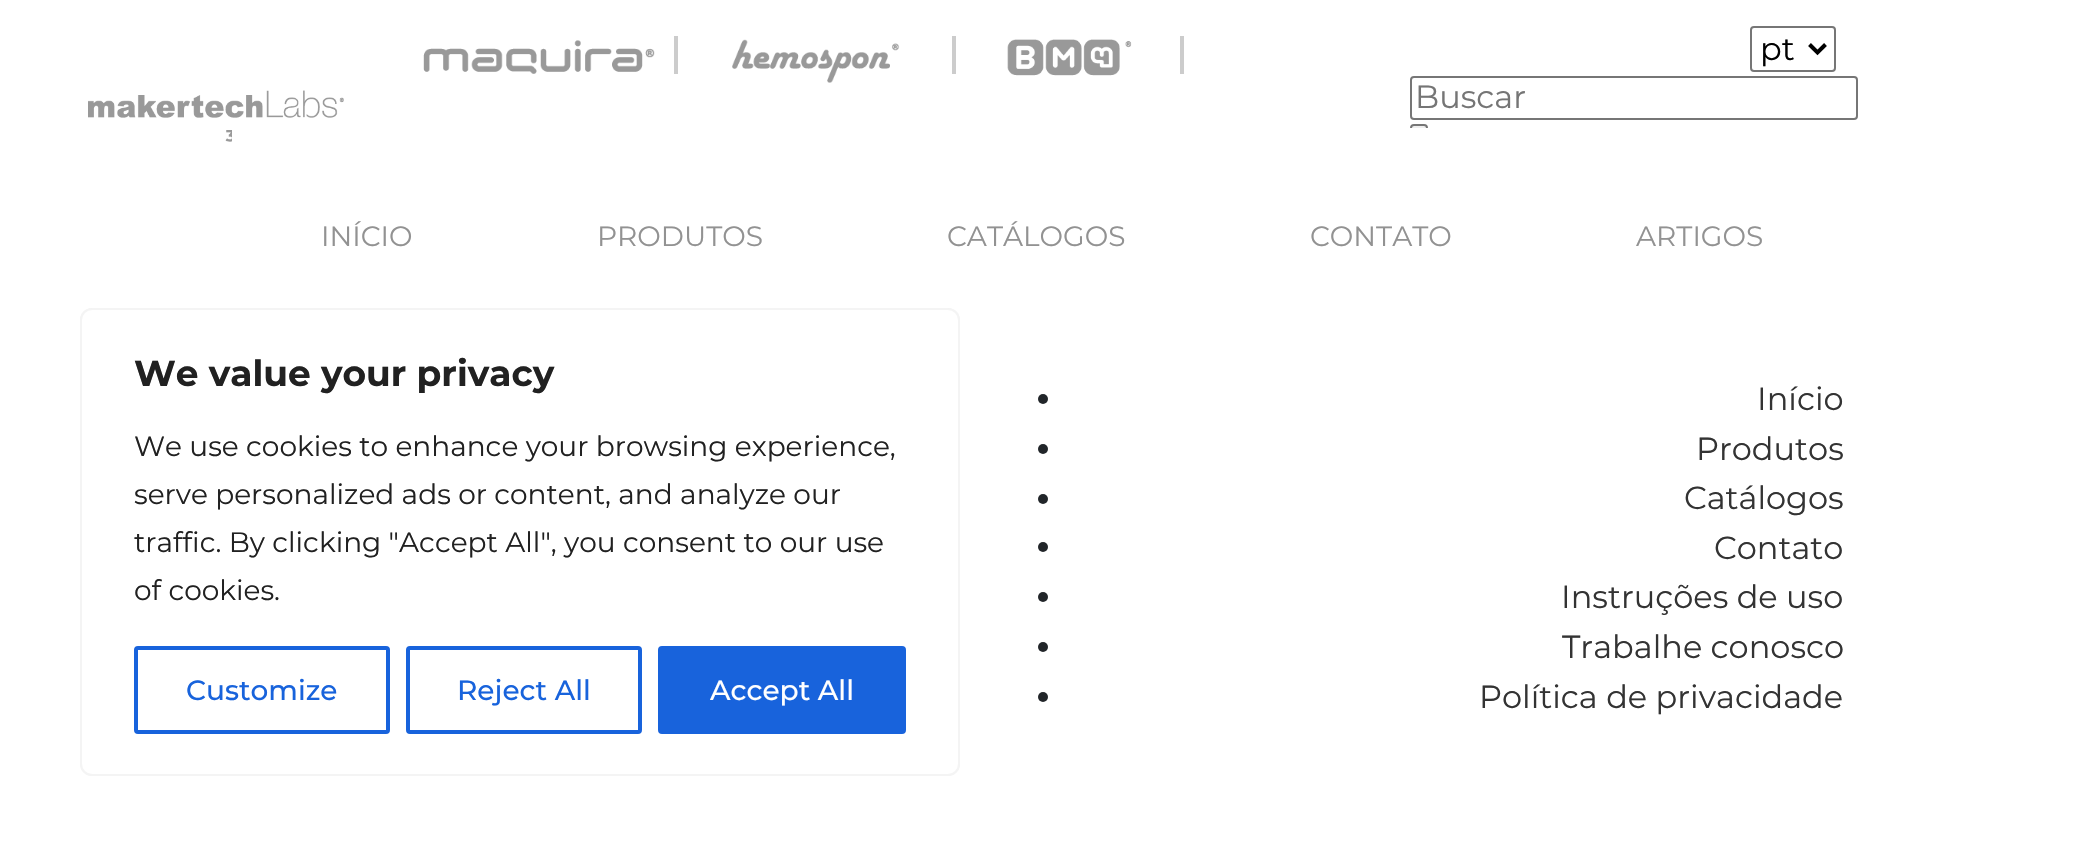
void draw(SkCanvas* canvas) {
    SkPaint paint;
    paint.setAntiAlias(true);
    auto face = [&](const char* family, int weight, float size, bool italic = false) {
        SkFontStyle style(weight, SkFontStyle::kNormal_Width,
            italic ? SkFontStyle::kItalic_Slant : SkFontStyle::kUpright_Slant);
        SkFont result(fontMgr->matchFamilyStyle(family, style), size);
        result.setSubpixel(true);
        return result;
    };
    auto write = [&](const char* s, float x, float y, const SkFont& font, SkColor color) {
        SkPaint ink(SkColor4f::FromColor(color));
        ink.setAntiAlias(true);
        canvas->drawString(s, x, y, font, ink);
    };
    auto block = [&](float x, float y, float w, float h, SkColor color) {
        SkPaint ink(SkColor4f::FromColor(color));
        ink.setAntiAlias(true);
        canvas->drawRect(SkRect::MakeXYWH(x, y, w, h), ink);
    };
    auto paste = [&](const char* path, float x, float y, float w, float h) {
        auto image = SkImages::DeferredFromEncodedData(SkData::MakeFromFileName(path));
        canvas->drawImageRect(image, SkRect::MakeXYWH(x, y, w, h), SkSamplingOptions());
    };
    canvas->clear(SK_ColorWHITE);
    paste("pic1.png", 423, 40, 232, 34);
    block(674, 36, 4, 38, SkColorSetRGB(204, 204, 204));
    paste("pic2.png", 732, 39, 168, 44);
    block(952, 36, 4, 38, SkColorSetRGB(204, 204, 204));
    paste("pic3.png", 1007, 39, 125, 37);
    block(1180, 36, 4, 38, SkColorSetRGB(204, 204, 204));
    paste("pic4.png", 88, 90, 256, 52);
    paint.setStyle(SkPaint::kStroke_Style);
    paint.setStrokeWidth(2);
    paint.setColor(SkColorSetRGB(118, 118, 118));
    canvas->drawRoundRect(SkRect::MakeXYWH(1751, 27, 84, 44), 3, 3, paint);
    paint.setStrokeWidth(4);
    paint.setColor(SK_ColorBLACK);
    canvas->drawPath(SkPathBuilder().moveTo(1809.5f, 44.5f).lineTo(1817.5f, 52.5f).lineTo(1825.5f, 44.5f).detach(), paint);
    auto kFont1 = face("Montserrat", 400, 32);
    write("pt", 1760, 60, kFont1, SK_ColorBLACK);
    paint.setStrokeWidth(2);
    paint.setColor(SkColorSetRGB(118, 118, 118));
    canvas->drawRoundRect(SkRect::MakeXYWH(1411, 77, 446, 42), 3, 3, paint);
    write("Buscar", 1415, 108, kFont1, SkColorSetRGB(117, 117, 117));
    paint.setStyle(SkPaint::kFill_Style);
    paint.setColor(SkColorSetRGB(239, 239, 239));
    canvas->drawRoundRect(SkRect::MakeXYWH(1411, 125, 16, 42), 3, 3, paint);
    paint.setStyle(SkPaint::kStroke_Style);
    paint.setColor(SkColorSetRGB(118, 118, 118));
    canvas->drawRoundRect(SkRect::MakeXYWH(1411, 125, 16, 42), 3, 3, paint);
    block(232, 128, 106, 14, SK_ColorWHITE);
    auto kFont2 = face("Montserrat", 400, 28);
    write("INÍCIO", 321, 246, kFont2, SkColorSetRGB(146, 146, 146));
    write("PRODUTOS", 597, 246, kFont2, SkColorSetRGB(146, 146, 146));
    write("CATÁLOGOS", 947, 246, kFont2, SkColorSetRGB(146, 146, 146));
    block(1410, 128, 18, 40, SK_ColorWHITE);
    write("CONTATO", 1310, 246, kFont2, SkColorSetRGB(146, 146, 146));
    write("ARTIGOS", 1636, 246, kFont2, SkColorSetRGB(146, 146, 146));
    canvas->save();
    canvas->clipPath(SkPathBuilder().moveTo(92, 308).lineTo(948, 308).cubicTo(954.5f, 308, 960, 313.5f, 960, 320).lineTo(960, 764).cubicTo(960, 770.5f, 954.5f, 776, 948, 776).lineTo(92, 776).cubicTo(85.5f, 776, 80, 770.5f, 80, 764).lineTo(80, 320).cubicTo(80, 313.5f, 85.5f, 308, 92, 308).close().detach(), true);
    paint.setStyle(SkPaint::kFill_Style);
    paint.setColor(SkColorSetARGB(77, 172, 171, 171));
    paint.setMaskFilter(SkMaskFilter::MakeBlur(kNormal_SkBlurStyle, 10));
    canvas->drawRoundRect(SkRect::MakeXYWH(80, 306, 880, 468), 12, 12, paint);
    paint.setMaskFilter(nullptr);
    canvas->restore();
    paint.setColor(SK_ColorWHITE);
    canvas->drawRoundRect(SkRect::MakeXYWH(81, 309, 878, 466), 11, 11, paint);
    paint.setStyle(SkPaint::kStroke_Style);
    paint.setColor(SkColorSetRGB(244, 244, 244));
    canvas->drawRoundRect(SkRect::MakeXYWH(81, 309, 878, 466), 11, 11, paint);
    auto kFont3 = face("Montserrat", 700, 36);
    write("We value your privacy", 134, 386, kFont3, SkColorSetRGB(33, 33, 33));
    write("We use cookies to enhance your browsing experience,", 134, 456, kFont2, SkColorSetRGB(33, 33, 33));
    write("serve personalized ads or content, and analyze our", 134, 504, kFont2, SkColorSetRGB(33, 33, 33));
    write("traffic. By clicking \"Accept All\", you consent to our use", 134, 552, kFont2, SkColorSetRGB(33, 33, 33));
    write("of cookies.", 134, 600, kFont2, SkColorSetRGB(33, 33, 33));
    paint.setStrokeWidth(4);
    paint.setColor(SkColorSetRGB(24, 99, 220));
    canvas->drawRoundRect(SkRect::MakeXYWH(136, 648, 252, 84), 2, 2, paint);
    auto kFont4 = face("Montserrat", 500, 28);
    write("Customize", 186, 700, kFont4, SkColorSetRGB(24, 99, 220));
    canvas->drawRoundRect(SkRect::MakeXYWH(408, 648, 232, 84), 2, 2, paint);
    write("Reject All", 457, 700, kFont4, SkColorSetRGB(24, 99, 220));
    paint.setStyle(SkPaint::kFill_Style);
    canvas->drawRoundRect(SkRect::MakeXYWH(660, 648, 244, 84), 2, 2, paint);
    paint.setStyle(SkPaint::kStroke_Style);
    canvas->drawRoundRect(SkRect::MakeXYWH(660, 648, 244, 84), 2, 2, paint);
    write("Accept All", 710, 700, kFont4, SK_ColorWHITE);
    paint.setStyle(SkPaint::kFill_Style);
    paint.setColor(SkColorSetRGB(33, 37, 41));
    canvas->drawCircle(1043, 399, 5, paint);
    write("Início", 1757, 410, kFont1, SkColorSetRGB(51, 51, 51));
    canvas->drawCircle(1043, 449, 5, paint);
    write("Produtos", 1696, 460, kFont1, SkColorSetRGB(51, 51, 51));
    canvas->drawCircle(1043, 499, 5, paint);
    write("Catálogos", 1684, 509, kFont1, SkColorSetRGB(51, 51, 51));
    canvas->drawCircle(1043, 547, 5, paint);
    write("Contato", 1714, 559, kFont1, SkColorSetRGB(51, 51, 51));
    canvas->drawCircle(1043, 597, 5, paint);
    write("Instruções de uso", 1561, 608, kFont1, SkColorSetRGB(51, 51, 51));
    canvas->drawCircle(1043, 647, 5, paint);
    write("Trabalhe conosco", 1562, 658, kFont1, SkColorSetRGB(51, 51, 51));
    canvas->drawCircle(1043, 697, 5, paint);
    write("Política de privacidade", 1479, 708, kFont1, SkColorSetRGB(51, 51, 51));
}
